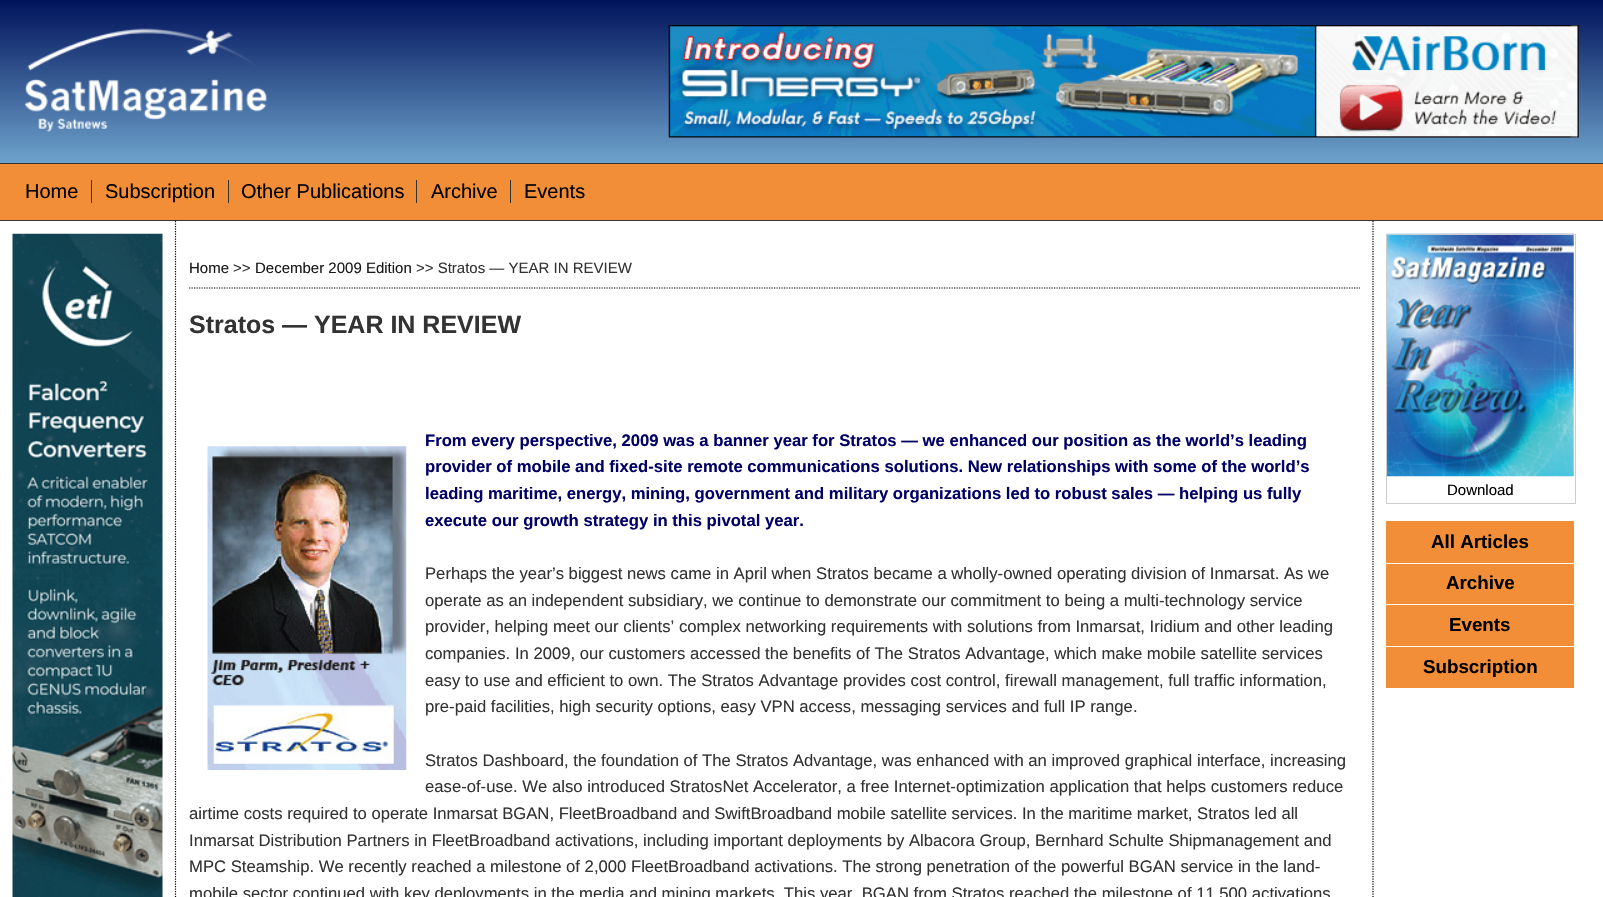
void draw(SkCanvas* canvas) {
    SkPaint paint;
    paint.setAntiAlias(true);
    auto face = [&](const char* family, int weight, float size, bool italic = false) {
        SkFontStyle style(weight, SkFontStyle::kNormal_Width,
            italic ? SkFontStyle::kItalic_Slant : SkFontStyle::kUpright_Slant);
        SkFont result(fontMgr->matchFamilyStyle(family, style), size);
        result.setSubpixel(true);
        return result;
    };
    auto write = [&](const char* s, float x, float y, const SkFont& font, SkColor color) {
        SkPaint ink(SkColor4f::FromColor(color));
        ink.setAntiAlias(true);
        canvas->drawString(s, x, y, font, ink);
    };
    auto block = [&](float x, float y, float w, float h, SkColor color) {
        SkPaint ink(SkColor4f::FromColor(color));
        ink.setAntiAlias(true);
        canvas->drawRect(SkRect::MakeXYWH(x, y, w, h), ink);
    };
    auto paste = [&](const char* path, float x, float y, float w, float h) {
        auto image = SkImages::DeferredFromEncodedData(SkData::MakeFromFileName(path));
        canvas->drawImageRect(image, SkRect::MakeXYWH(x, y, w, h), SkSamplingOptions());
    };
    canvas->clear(SK_ColorWHITE);
    {
        const SkColor colors[] = {SkColorSetRGB(0, 19, 91), SkColorSetRGB(110, 163, 204)};
        const float stops[] = {0, 1};
        const SkPoint ends[] = {{802, 0}, {802, 163}};
        paint.setShader(SkGradientShader::MakeLinear(ends, colors, stops, 2, SkTileMode::kClamp));
        paint.setAlpha(255);
    }
    canvas->drawRect(SkRect::MakeXYWH(0, 0, 1603, 163), paint);
    paste("pic1.png", 25, 28, 242, 104);
    paste("pic2.png", 668, 25, 911, 113);
    block(0, 164, 1603, 56, SkColorSetRGB(242, 142, 55));
    block(0, 163, 1603, 1, SkColorSetRGB(51, 51, 51));
    block(0, 220, 1603, 1, SkColorSetRGB(51, 51, 51));
    auto kFont1 = face("Liberation Sans", 400, 20);
    write("Home", 25, 198, kFont1, SK_ColorBLACK);
    block(91, 180, 1, 23, SkColorSetRGB(51, 51, 51));
    write("Subscription", 105, 198, kFont1, SK_ColorBLACK);
    block(228, 180, 1, 23, SkColorSetRGB(51, 51, 51));
    write("Other Publications", 241, 198, kFont1, SK_ColorBLACK);
    block(416, 180, 1, 23, SkColorSetRGB(51, 51, 51));
    write("Archive", 431, 198, kFont1, SK_ColorBLACK);
    block(510, 180, 1, 23, SkColorSetRGB(51, 51, 51));
    write("Events", 524, 198, kFont1, SK_ColorBLACK);
    paste("pic3.png", 12, 233, 151, 664);
    paint.setStyle(SkPaint::kStroke_Style);
    paint.setStrokeWidth(1.2f);
    paint.setShader(nullptr);
    paint.setColor(SK_ColorBLACK);
    paint.setPathEffect(SkDashPathEffect::Make({{1.25f, 1.25f}}, 0));
    canvas->drawPath(SkPathBuilder().moveTo(1373, 221).lineTo(1373, 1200).detach(), paint);
    paint.setPathEffect(nullptr);
    paint.setPathEffect(SkDashPathEffect::Make({{1.25f, 1.25f}}, 0));
    canvas->drawPath(SkPathBuilder().moveTo(175.5f, 221).lineTo(175.5f, 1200).detach(), paint);
    paint.setPathEffect(nullptr);
    paint.setPathEffect(SkDashPathEffect::Make({{1.25f, 1.25f}}, 0));
    canvas->drawPath(SkPathBuilder().moveTo(189, 288).lineTo(1360, 288).detach(), paint);
    paint.setPathEffect(nullptr);
    auto kFont2 = face("Liberation Sans", 400, 15);
    write("Home", 189, 273, kFont2, SkColorSetRGB(25, 25, 25));
    write(">>", 233, 273, kFont2, SkColorSetRGB(51, 51, 51));
    write("December 2009 Edition", 255, 273, kFont2, SkColorSetRGB(25, 25, 25));
    write(">> Stratos — YEAR IN REVIEW", 416, 273, kFont2, SkColorSetRGB(51, 51, 51));
    auto kFont3 = face("Liberation Sans", 700, 25);
    write("Stratos — YEAR IN REVIEW", 189, 333, kFont3, SkColorSetRGB(51, 51, 51));
    auto kFont4 = face("Liberation Sans", 700, 16.67f);
    write("From every perspective, 2009 was a banner year for Stratos — we enhanced our position as the world’s leading", 425, 446, kFont4, SkColorSetRGB(0, 0, 102));
    paste("pic4.png", 207, 446, 200, 324);
    write("provider of mobile and fixed-site remote communications solutions. New relationships with some of the world’s", 425, 472, kFont4, SkColorSetRGB(0, 0, 102));
    write("leading maritime, energy, mining, government and military organizations led to robust sales — helping us fully", 425, 499, kFont4, SkColorSetRGB(0, 0, 102));
    write("execute our growth strategy in this pivotal year.", 425, 526, kFont4, SkColorSetRGB(0, 0, 102));
    auto kFont5 = face("Liberation Sans", 400, 16.67f);
    write("Perhaps the year’s biggest news came in April when Stratos became a wholly-owned operating division of Inmarsat. As we", 425, 579, kFont5, SkColorSetRGB(51, 51, 51));
    write("operate as an independent subsidiary, we continue to demonstrate our commitment to being a multi-technology service", 425, 606, kFont5, SkColorSetRGB(51, 51, 51));
    write("provider, helping meet our clients’ complex networking requirements with solutions from Inmarsat, Iridium and other leading", 425, 632, kFont5, SkColorSetRGB(51, 51, 51));
    write("companies. In 2009, our customers accessed the benefits of The Stratos Advantage, which make mobile satellite services", 425, 659, kFont5, SkColorSetRGB(51, 51, 51));
    write("easy to use and efficient to own. The Stratos Advantage provides cost control, firewall management, full traffic information,", 425, 686, kFont5, SkColorSetRGB(51, 51, 51));
    write("pre-paid facilities, high security options, easy VPN access, messaging services and full IP range.", 425, 712, kFont5, SkColorSetRGB(51, 51, 51));
    write("Stratos Dashboard, the foundation of The Stratos Advantage, was enhanced with an improved graphical interface, increasing", 425, 766, kFont5, SkColorSetRGB(51, 51, 51));
    write("ease-of-use. We also introduced StratosNet Accelerator, a free Internet-optimization application that helps customers reduce", 425, 792, kFont5, SkColorSetRGB(51, 51, 51));
    write("airtime costs required to operate Inmarsat BGAN, FleetBroadband and SwiftBroadband mobile satellite services. In the maritime market, Stratos led all", 189, 819, kFont5, SkColorSetRGB(51, 51, 51));
    write("Inmarsat Distribution Partners in FleetBroadband activations, including important deployments by Albacora Group, Bernhard Schulte Shipmanagement and", 189, 846, kFont5, SkColorSetRGB(51, 51, 51));
    write("MPC Steamship. We recently reached a milestone of 2,000 FleetBroadband activations. The strong penetration of the powerful BGAN service in the land-", 189, 872, kFont5, SkColorSetRGB(51, 51, 51));
    write("mobile sector continued with key deployments in the media and mining markets. This year, BGAN from Stratos reached the milestone of 11,500 activations", 189, 899, kFont5, SkColorSetRGB(51, 51, 51));
    paste("pic5.png", 1386, 233, 188, 244);
    paint.setStrokeWidth(1);
    paint.setColor(SkColorSetRGB(204, 204, 204));
    canvas->drawRect(SkRect::MakeXYWH(1386.5f, 234.5f, 189, 269), paint);
    write("Download", 1447, 495, kFont2, SK_ColorBLACK);
    block(1386, 521, 188, 42, SkColorSetRGB(242, 142, 55));
    auto kFont6 = face("Liberation Sans", 700, 18.75f);
    write("All Articles", 1431, 548, kFont6, SK_ColorBLACK);
    block(1386, 564, 188, 40, SkColorSetRGB(242, 142, 55));
    write("Archive", 1446, 589, kFont6, SK_ColorBLACK);
    block(1386, 605, 188, 83, SkColorSetRGB(242, 142, 55));
    block(1386, 646, 188, 1, SK_ColorWHITE);
    write("Events", 1449, 631, kFont6, SK_ColorBLACK);
    write("Subscription", 1423, 673, kFont6, SK_ColorBLACK);
}
